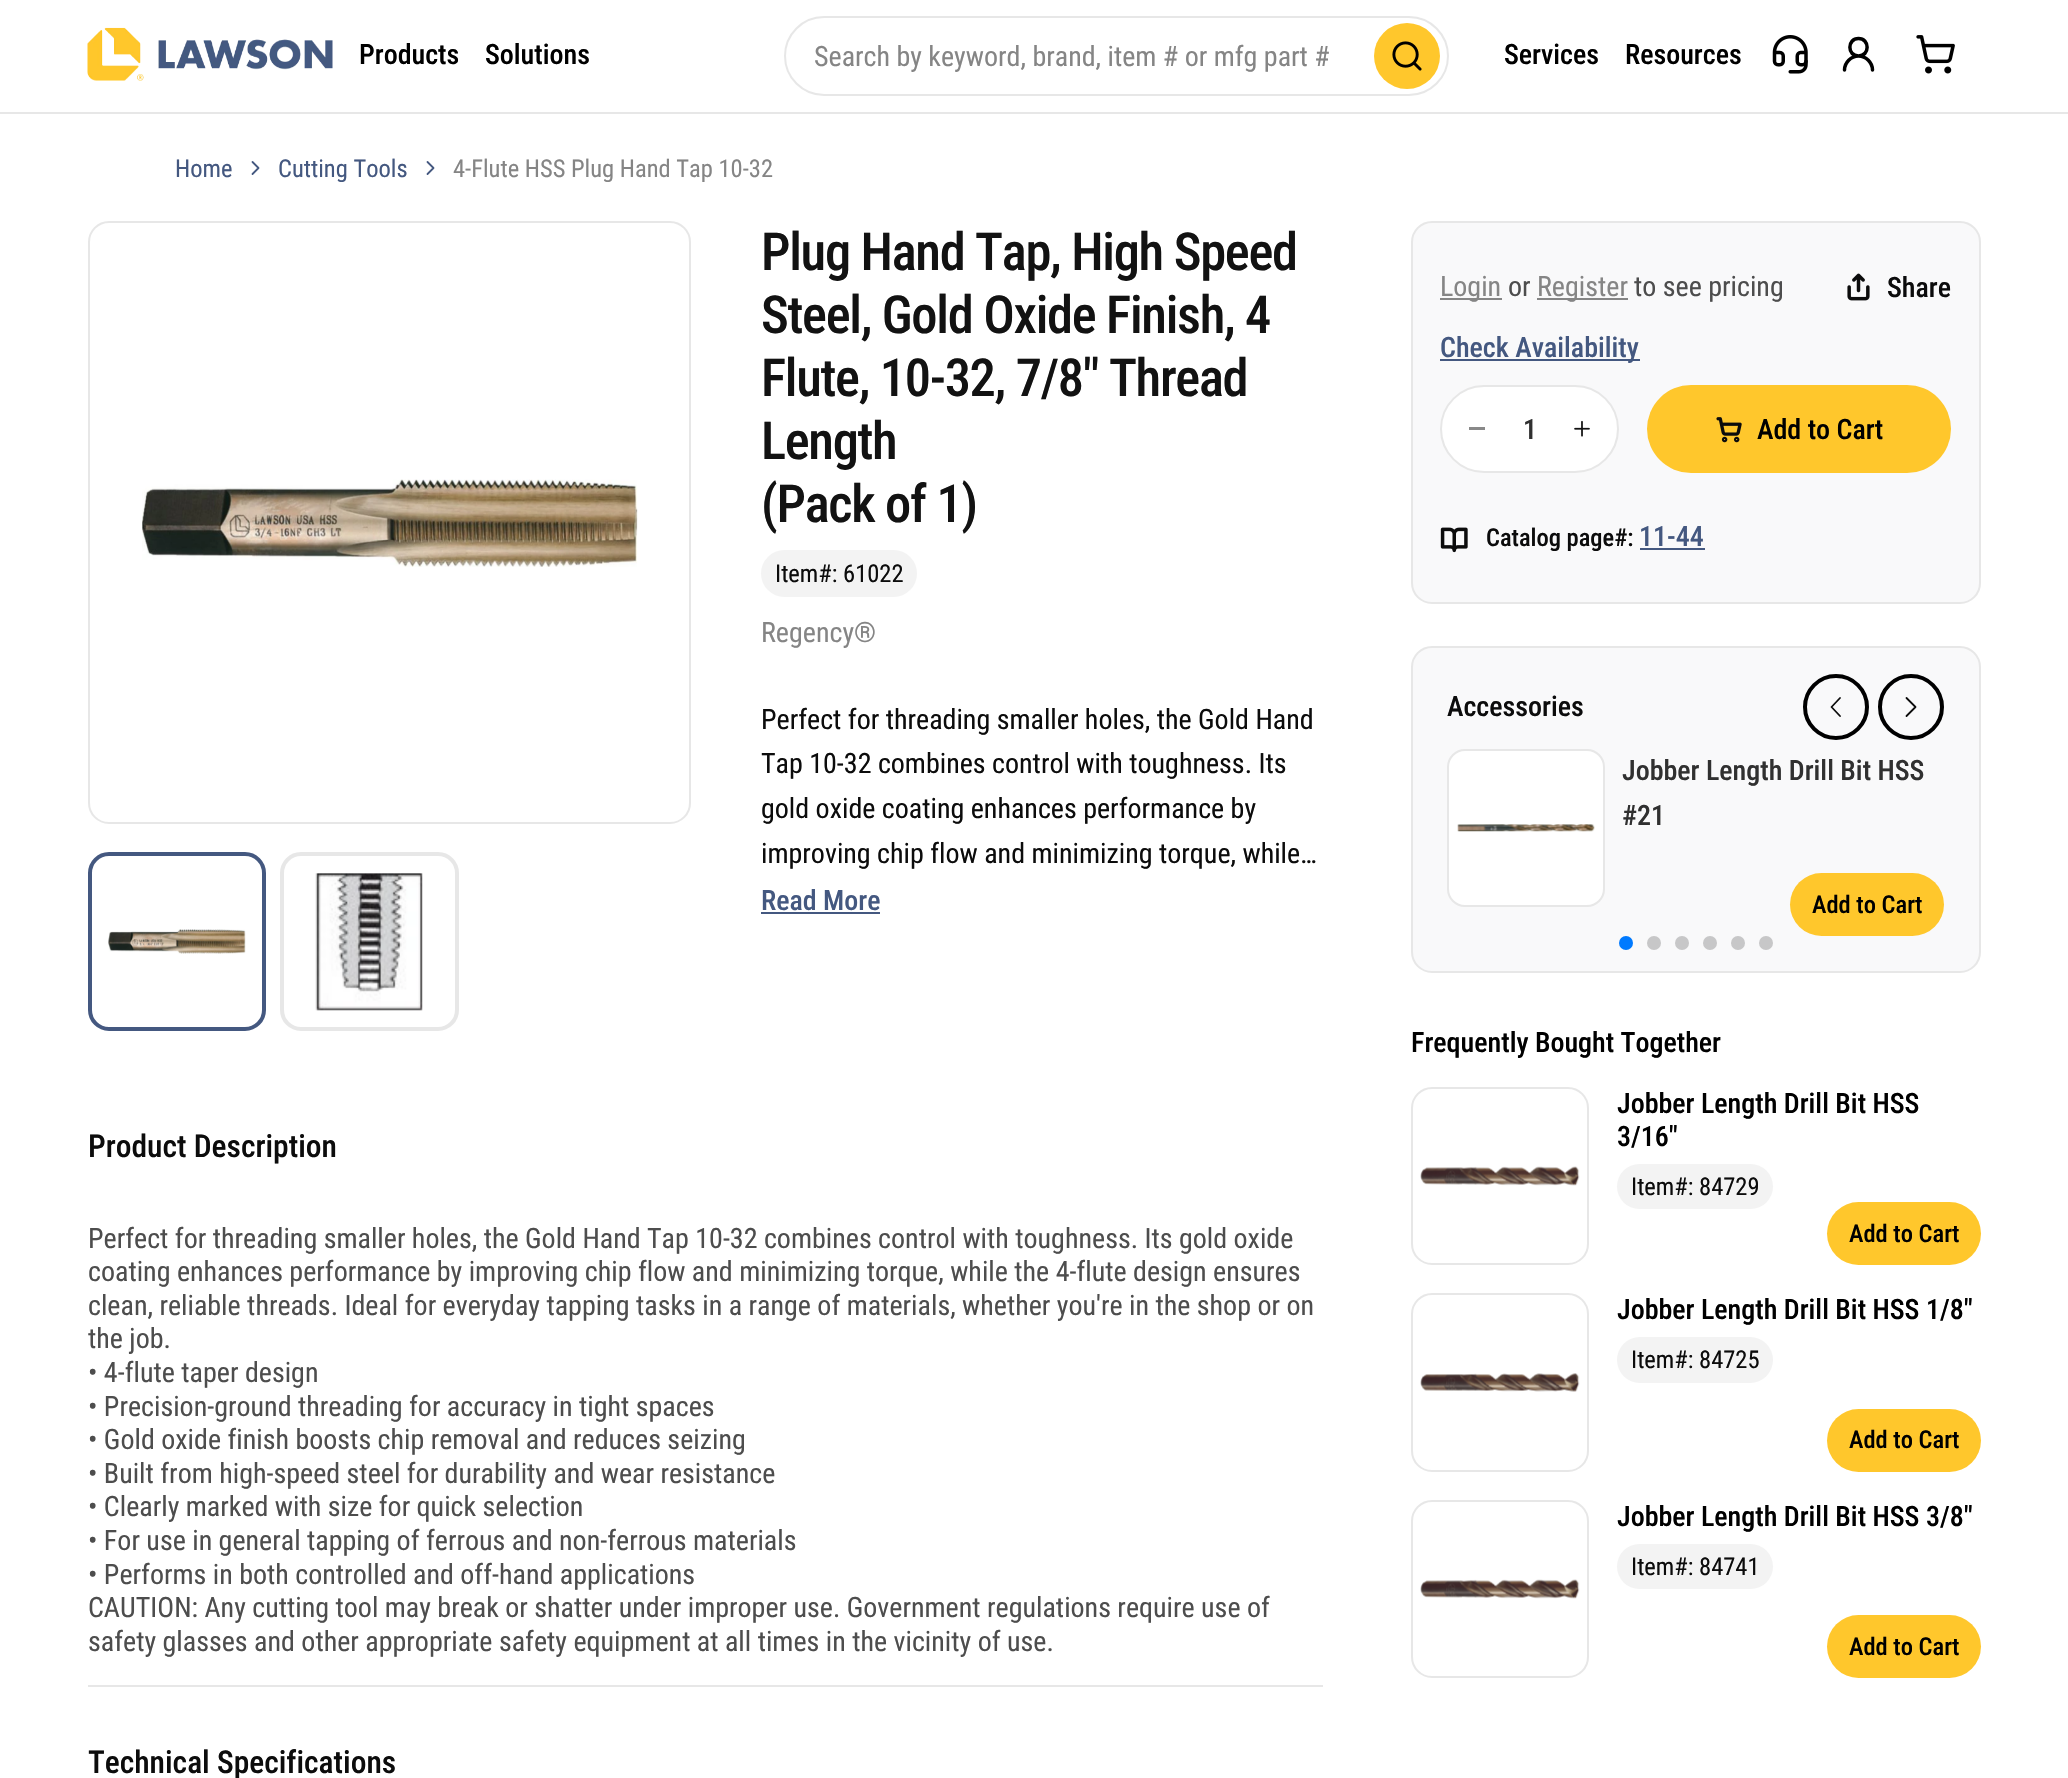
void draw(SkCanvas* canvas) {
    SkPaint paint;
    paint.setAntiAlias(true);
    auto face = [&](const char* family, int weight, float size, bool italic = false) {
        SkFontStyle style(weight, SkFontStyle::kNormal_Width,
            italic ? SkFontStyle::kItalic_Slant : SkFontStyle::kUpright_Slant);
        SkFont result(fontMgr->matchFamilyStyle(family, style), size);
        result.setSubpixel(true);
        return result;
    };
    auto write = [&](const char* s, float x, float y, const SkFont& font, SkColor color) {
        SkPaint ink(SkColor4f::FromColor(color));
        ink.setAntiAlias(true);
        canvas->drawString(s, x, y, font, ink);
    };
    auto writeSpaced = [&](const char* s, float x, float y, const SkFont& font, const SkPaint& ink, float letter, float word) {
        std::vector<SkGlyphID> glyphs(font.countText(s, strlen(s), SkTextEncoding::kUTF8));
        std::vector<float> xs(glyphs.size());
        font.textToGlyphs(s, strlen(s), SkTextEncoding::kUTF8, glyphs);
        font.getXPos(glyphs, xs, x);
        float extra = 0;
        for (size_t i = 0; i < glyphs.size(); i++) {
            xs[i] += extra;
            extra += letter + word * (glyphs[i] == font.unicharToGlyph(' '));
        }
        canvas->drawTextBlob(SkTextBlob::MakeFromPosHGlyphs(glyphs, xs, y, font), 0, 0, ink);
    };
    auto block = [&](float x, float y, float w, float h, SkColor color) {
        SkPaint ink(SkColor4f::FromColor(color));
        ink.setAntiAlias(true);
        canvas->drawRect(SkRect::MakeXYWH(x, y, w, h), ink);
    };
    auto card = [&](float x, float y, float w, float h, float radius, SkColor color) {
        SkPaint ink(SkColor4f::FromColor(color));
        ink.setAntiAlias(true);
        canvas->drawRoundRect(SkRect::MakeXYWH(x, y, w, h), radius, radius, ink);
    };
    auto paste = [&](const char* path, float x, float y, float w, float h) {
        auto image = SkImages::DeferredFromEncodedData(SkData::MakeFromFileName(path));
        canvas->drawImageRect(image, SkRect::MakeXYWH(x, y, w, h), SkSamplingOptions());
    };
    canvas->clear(SK_ColorWHITE);
    block(0, 112, 2068, 2, SkColorSetRGB(231, 231, 231));
    paste("pic1.png", 87, 27, 246, 54);
    auto kFont1 = face("Roboto Condensed", 500, 28);
    write("Products", 359, 64, kFont1, SK_ColorBLACK);
    write("Solutions", 485, 64, kFont1, SK_ColorBLACK);
    write("Services", 1504, 64, kFont1, SK_ColorBLACK);
    write("Resources", 1625, 64, kFont1, SK_ColorBLACK);
    paste("pic2.png", 1772, 35, 36, 39);
    paint.setStyle(SkPaint::kStroke_Style);
    paint.setStrokeWidth(3.5f);
    paint.setStrokeCap(SkPaint::kRound_Cap);
    paint.setStrokeJoin(SkPaint::kRound_Join);
    paint.setColor(SK_ColorBLACK);
    canvas->drawPath(SkPathBuilder().moveTo(1858.5f, 56).cubicTo(1870, 56, 1870, 38.5f, 1858.5f, 38.5f).cubicTo(1847, 38.5f, 1847, 56, 1858.5f, 56).close().moveTo(1858.5f, 56).cubicTo(1866, 56, 1872.5f, 62.5f, 1872.5f, 70).moveTo(1858.5f, 56).cubicTo(1851, 56, 1844.5f, 62.5f, 1844.5f, 70).detach(), paint);
    paste("pic3.png", 1916, 35, 39, 39);
    paint.setStrokeWidth(2);
    paint.setStrokeCap(SkPaint::kButt_Cap);
    paint.setStrokeJoin(SkPaint::kMiter_Join);
    paint.setColor(SkColorSetRGB(231, 231, 231));
    canvas->drawRoundRect(SkRect::MakeXYWH(785, 17, 663, 78), 39, 39, paint);
    auto kFont2 = face("Roboto Condensed", 400, 28);
    write("Search by keyword, brand, item # or mfg part #", 814, 66, kFont2, SkColorSetRGB(133, 133, 133));
    paint.setStyle(SkPaint::kFill_Style);
    paint.setColor(SkColorSetRGB(255, 199, 44));
    canvas->drawCircle(1407, 56, 33, paint);
    paste("pic4.png", 1392, 41, 30, 30);
    auto kFont3 = face("Roboto Condensed", 400, 24.5f);
    write("Home", 175, 177, kFont3, SkColorSetRGB(68, 88, 128));
    paint.setStyle(SkPaint::kStroke_Style);
    paint.setStrokeWidth(1.8f);
    paint.setStrokeCap(SkPaint::kRound_Cap);
    paint.setStrokeJoin(SkPaint::kRound_Join);
    paint.setColor(SkColorSetRGB(68, 88, 128));
    canvas->drawPath(SkPathBuilder().moveTo(252.5f, 174).lineTo(258.5f, 168).lineTo(252.5f, 162).detach(), paint);
    write("Cutting Tools", 278, 177, kFont3, SkColorSetRGB(68, 88, 128));
    canvas->drawPath(SkPathBuilder().moveTo(427.5f, 174).lineTo(433.5f, 168).lineTo(427.5f, 162).detach(), paint);
    write("4-Flute HSS Plug Hand Tap 10-32", 453, 177, kFont3, SkColorSetRGB(133, 133, 133));
    paint.setStrokeWidth(2);
    paint.setStrokeCap(SkPaint::kButt_Cap);
    paint.setStrokeJoin(SkPaint::kMiter_Join);
    paint.setColor(SkColorSetRGB(231, 231, 231));
    canvas->drawRoundRect(SkRect::MakeXYWH(89, 222, 601, 601), 20, 20, paint);
    paste("pic5.png", 142, 479, 496, 88);
    paint.setStrokeWidth(4);
    paint.setColor(SkColorSetRGB(68, 88, 128));
    canvas->drawRoundRect(SkRect::MakeXYWH(90, 854, 174, 175), 19, 19, paint);
    paste("pic6.png", 108, 929, 138, 25);
    paint.setColor(SkColorSetRGB(231, 231, 231));
    canvas->drawRoundRect(SkRect::MakeXYWH(282, 854, 175, 175), 19, 19, paint);
    paste("pic7.png", 315, 873, 108, 138);
    auto kFont4 = face("Roboto Condensed", 500, 52.5f);
    paint.setStyle(SkPaint::kFill_Style);
    paint.setColor(SkColorSetRGB(18, 18, 18));
    writeSpaced("Plug Hand Tap, High Speed", 761, 270, kFont4, paint, -1.3f, 0);
    writeSpaced("Steel, Gold Oxide Finish, 4", 761, 333, kFont4, paint, -1.3f, 0);
    writeSpaced("Flute, 10-32, 7/8\" Thread", 761, 396, kFont4, paint, -1.3f, 0);
    writeSpaced("Length", 761, 459, kFont4, paint, -1.3f, 0);
    writeSpaced("(Pack of 1)", 761, 522, kFont4, paint, -1.3f, 0);
    card(761, 550, 156, 47, 23.5f, SkColorSetRGB(243, 243, 243));
    write("Item#: 61022", 775, 582, kFont3, SkColorSetRGB(12, 12, 12));
    write("Regency®", 761, 642, kFont2, SkColorSetRGB(133, 133, 133));
    write("Perfect for threading smaller holes, the Gold Hand", 761, 729, kFont2, SkColorSetRGB(12, 12, 12));
    write("Tap 10-32 combines control with toughness. Its", 761, 773, kFont2, SkColorSetRGB(12, 12, 12));
    write("gold oxide coating enhances performance by", 761, 818, kFont2, SkColorSetRGB(12, 12, 12));
    write("improving chip flow and minimizing torque, while…", 761, 863, kFont2, SkColorSetRGB(12, 12, 12));
    write("Read More", 761, 910, kFont1, SkColorSetRGB(68, 88, 128));
    block(761, 912, 119, 2, SkColorSetRGB(68, 88, 128));
    paint.setColor(SkColorSetRGB(249, 249, 250));
    canvas->drawRoundRect(SkRect::MakeXYWH(1412, 222, 568, 381), 20, 20, paint);
    paint.setStyle(SkPaint::kStroke_Style);
    paint.setStrokeWidth(2);
    paint.setColor(SkColorSetRGB(231, 231, 231));
    canvas->drawRoundRect(SkRect::MakeXYWH(1412, 222, 568, 381), 20, 20, paint);
    block(1440, 298, 62, 2, SkColorSetRGB(133, 133, 133));
    write("Login", 1440, 296, kFont2, SkColorSetRGB(133, 133, 133));
    write("or", 1508, 296, kFont2, SkColorSetRGB(77, 77, 77));
    block(1537, 298, 91, 2, SkColorSetRGB(133, 133, 133));
    write("Register", 1537, 296, kFont2, SkColorSetRGB(133, 133, 133));
    write("to see pricing", 1634, 296, kFont2, SkColorSetRGB(77, 77, 77));
    paste("pic8.png", 1847, 273, 23, 28);
    write("Share", 1887, 297, kFont1, SkColorSetRGB(12, 12, 12));
    block(1440, 359, 200, 2, SkColorSetRGB(68, 88, 128));
    write("Check Availability", 1440, 357, kFont1, SkColorSetRGB(68, 88, 128));
    paint.setStyle(SkPaint::kFill_Style);
    paint.setColor(SK_ColorWHITE);
    canvas->drawRoundRect(SkRect::MakeXYWH(1441, 386, 177, 86), 43, 43, paint);
    paint.setStyle(SkPaint::kStroke_Style);
    paint.setColor(SkColorSetRGB(231, 231, 231));
    canvas->drawRoundRect(SkRect::MakeXYWH(1441, 386, 177, 86), 43, 43, paint);
    block(1469, 427, 16, 3, SkColorSetRGB(137, 137, 137));
    write("1", 1523, 439, kFont1, SkColorSetRGB(48, 48, 48));
    paste("pic9.png", 1574, 420, 16, 17);
    card(1647, 385, 304, 88, 44, SkColorSetRGB(255, 199, 44));
    paste("pic10.png", 1716, 417, 26, 26);
    write("Add to Cart", 1757, 439, kFont1, SK_ColorBLACK);
    paste("pic11.png", 1440, 527, 28, 26);
    auto kFont5 = face("Roboto Condensed", 500, 24.5f);
    write("Catalog page#:", 1486, 546, kFont5, SkColorSetRGB(12, 12, 12));
    write("11-44", 1639, 546, kFont1, SkColorSetRGB(68, 88, 128));
    block(1640, 548, 65, 2, SkColorSetRGB(68, 88, 128));
    paint.setStyle(SkPaint::kFill_Style);
    paint.setColor(SkColorSetRGB(249, 249, 250));
    canvas->drawRoundRect(SkRect::MakeXYWH(1412, 647, 568, 325), 20, 20, paint);
    paint.setStyle(SkPaint::kStroke_Style);
    paint.setColor(SkColorSetRGB(231, 231, 231));
    canvas->drawRoundRect(SkRect::MakeXYWH(1412, 647, 568, 325), 20, 20, paint);
    write("Accessories", 1447, 716, kFont1, SkColorSetRGB(12, 12, 12));
    paint.setStrokeWidth(4);
    paint.setColor(SK_ColorBLACK);
    canvas->drawCircle(1836, 707, 31, paint);
    paint.setStrokeWidth(1.8f);
    paint.setStrokeCap(SkPaint::kRound_Cap);
    paint.setStrokeJoin(SkPaint::kRound_Join);
    paint.setColor(SkColorSetRGB(12, 12, 12));
    canvas->drawPath(SkPathBuilder().moveTo(1840, 698).lineTo(1831.5f, 707).lineTo(1840, 716).detach(), paint);
    paint.setStrokeWidth(4);
    paint.setStrokeCap(SkPaint::kButt_Cap);
    paint.setStrokeJoin(SkPaint::kMiter_Join);
    paint.setColor(SK_ColorBLACK);
    canvas->drawCircle(1911, 707, 31, paint);
    paint.setStrokeWidth(1.8f);
    paint.setStrokeCap(SkPaint::kRound_Cap);
    paint.setStrokeJoin(SkPaint::kRound_Join);
    paint.setColor(SkColorSetRGB(12, 12, 12));
    canvas->drawPath(SkPathBuilder().moveTo(1906.5f, 716).lineTo(1915.5f, 707).lineTo(1906.5f, 698).detach(), paint);
    paint.setStyle(SkPaint::kFill_Style);
    paint.setColor(SK_ColorWHITE);
    canvas->drawRoundRect(SkRect::MakeXYWH(1448, 750, 156, 156), 17, 17, paint);
    paint.setStyle(SkPaint::kStroke_Style);
    paint.setStrokeWidth(2);
    paint.setStrokeCap(SkPaint::kButt_Cap);
    paint.setStrokeJoin(SkPaint::kMiter_Join);
    paint.setColor(SkColorSetRGB(231, 231, 231));
    canvas->drawRoundRect(SkRect::MakeXYWH(1448, 750, 156, 156), 17, 17, paint);
    paste("pic12.png", 1457, 824, 138, 8);
    write("Jobber Length Drill Bit HSS", 1622, 780, kFont1, SkColorSetRGB(48, 48, 48));
    write("#21", 1622, 825, kFont1, SkColorSetRGB(48, 48, 48));
    card(1790, 873, 154, 63, 31.5f, SkColorSetRGB(255, 199, 44));
    write("Add to Cart", 1812, 913, kFont5, SK_ColorBLACK);
    paint.setStyle(SkPaint::kFill_Style);
    paint.setColor(SkColorSetRGB(0, 122, 255));
    canvas->drawCircle(1626, 943, 7, paint);
    paint.setColor(SkColorSetRGB(199, 199, 200));
    canvas->drawCircle(1654, 943, 7, paint);
    canvas->drawCircle(1682, 943, 7, paint);
    canvas->drawCircle(1710, 943, 7, paint);
    canvas->drawCircle(1738, 943, 7, paint);
    canvas->drawCircle(1766, 943, 7, paint);
    write("Frequently Bought Together", 1411, 1052, kFont1, SK_ColorBLACK);
    paint.setStyle(SkPaint::kStroke_Style);
    paint.setColor(SkColorSetRGB(231, 231, 231));
    canvas->drawRoundRect(SkRect::MakeXYWH(1412, 1088, 176, 176), 20, 20, paint);
    paste("pic13.png", 1420, 1166, 160, 20);
    write("Jobber Length Drill Bit HSS", 1617, 1113, kFont1, SK_ColorBLACK);
    write("3/16\"", 1617, 1146, kFont1, SK_ColorBLACK);
    card(1617, 1164, 156, 45, 22.5f, SkColorSetRGB(243, 243, 243));
    write("Item#: 84729", 1631, 1195, kFont3, SkColorSetRGB(12, 12, 12));
    card(1827, 1202, 154, 63, 31.5f, SkColorSetRGB(255, 199, 44));
    write("Add to Cart", 1849, 1242, kFont5, SK_ColorBLACK);
    canvas->drawRoundRect(SkRect::MakeXYWH(1412, 1294, 176, 177), 20, 20, paint);
    paste("pic14.png", 1420, 1373, 160, 19);
    write("Jobber Length Drill Bit HSS 1/8\"", 1617, 1319, kFont1, SK_ColorBLACK);
    card(1617, 1337, 156, 46, 23, SkColorSetRGB(243, 243, 243));
    write("Item#: 84725", 1631, 1368, kFont3, SkColorSetRGB(12, 12, 12));
    card(1827, 1409, 154, 63, 31.5f, SkColorSetRGB(255, 199, 44));
    write("Add to Cart", 1849, 1448, kFont5, SK_ColorBLACK);
    canvas->drawRoundRect(SkRect::MakeXYWH(1412, 1501, 176, 176), 20, 20, paint);
    paste("pic13.png", 1420, 1579, 160, 20);
    write("Jobber Length Drill Bit HSS 3/8\"", 1617, 1526, kFont1, SK_ColorBLACK);
    card(1617, 1544, 156, 45, 22.5f, SkColorSetRGB(243, 243, 243));
    write("Item#: 84741", 1631, 1575, kFont3, SkColorSetRGB(12, 12, 12));
    card(1827, 1615, 154, 63, 31.5f, SkColorSetRGB(255, 199, 44));
    write("Add to Cart", 1849, 1655, kFont5, SK_ColorBLACK);
    block(88, 1685, 1235, 2, SkColorSetRGB(231, 231, 231));
    auto kFont6 = face("Roboto Condensed", 500, 31.5f);
    write("Product Description", 88, 1157, kFont6, SkColorSetRGB(12, 12, 12));
    write("Perfect for threading smaller holes, the Gold Hand Tap 10-32 combines control with toughness. Its gold oxide", 88, 1248, kFont2, SkColorSetRGB(77, 77, 77));
    write("coating enhances performance by improving chip flow and minimizing torque, while the 4-flute design ensures", 88, 1281, kFont2, SkColorSetRGB(77, 77, 77));
    write("clean, reliable threads. Ideal for everyday tapping tasks in a range of materials, whether you're in the shop or on", 88, 1315, kFont2, SkColorSetRGB(77, 77, 77));
    write("the job.", 88, 1348, kFont2, SkColorSetRGB(77, 77, 77));
    write("• 4-flute taper design", 88, 1382, kFont2, SkColorSetRGB(77, 77, 77));
    write("• Precision-ground threading for accuracy in tight spaces", 88, 1416, kFont2, SkColorSetRGB(77, 77, 77));
    write("• Gold oxide finish boosts chip removal and reduces seizing", 88, 1449, kFont2, SkColorSetRGB(77, 77, 77));
    write("• Built from high-speed steel for durability and wear resistance", 88, 1483, kFont2, SkColorSetRGB(77, 77, 77));
    write("• Clearly marked with size for quick selection", 88, 1516, kFont2, SkColorSetRGB(77, 77, 77));
    write("• For use in general tapping of ferrous and non-ferrous materials", 88, 1550, kFont2, SkColorSetRGB(77, 77, 77));
    write("• Performs in both controlled and off-hand applications", 88, 1584, kFont2, SkColorSetRGB(77, 77, 77));
    write("CAUTION: Any cutting tool may break or shatter under improper use. Government regulations require use of", 88, 1617, kFont2, SkColorSetRGB(77, 77, 77));
    write("safety glasses and other appropriate safety equipment at all times in the vicinity of use.", 88, 1651, kFont2, SkColorSetRGB(77, 77, 77));
    write("Technical Specifications", 88, 1773, kFont6, SkColorSetRGB(12, 12, 12));
}
